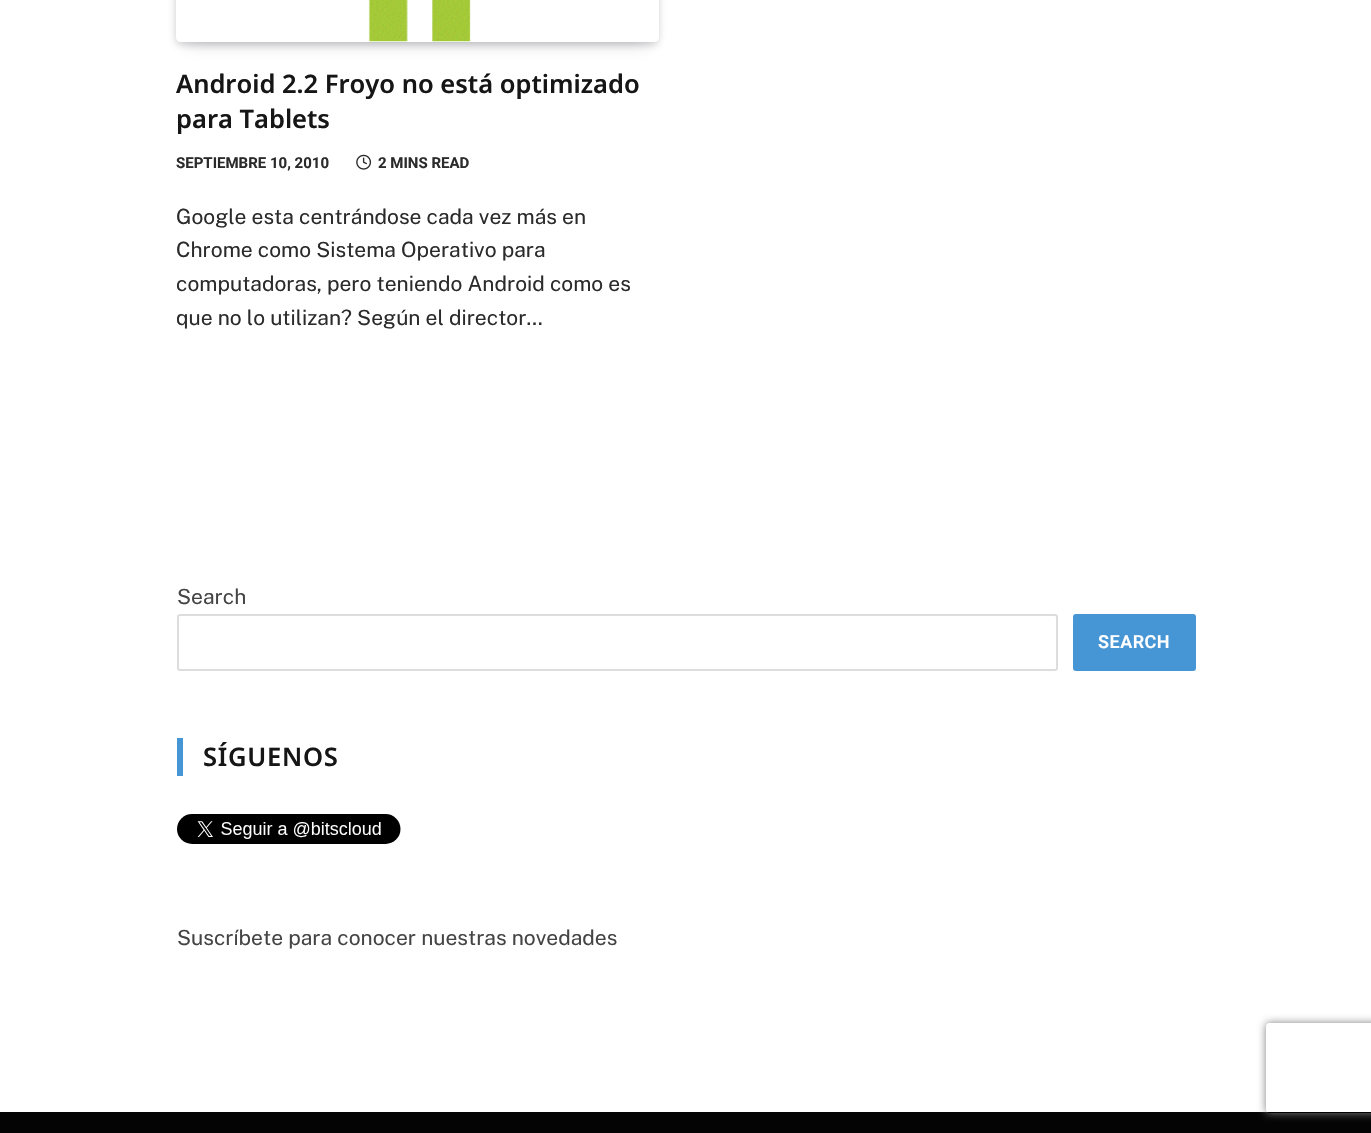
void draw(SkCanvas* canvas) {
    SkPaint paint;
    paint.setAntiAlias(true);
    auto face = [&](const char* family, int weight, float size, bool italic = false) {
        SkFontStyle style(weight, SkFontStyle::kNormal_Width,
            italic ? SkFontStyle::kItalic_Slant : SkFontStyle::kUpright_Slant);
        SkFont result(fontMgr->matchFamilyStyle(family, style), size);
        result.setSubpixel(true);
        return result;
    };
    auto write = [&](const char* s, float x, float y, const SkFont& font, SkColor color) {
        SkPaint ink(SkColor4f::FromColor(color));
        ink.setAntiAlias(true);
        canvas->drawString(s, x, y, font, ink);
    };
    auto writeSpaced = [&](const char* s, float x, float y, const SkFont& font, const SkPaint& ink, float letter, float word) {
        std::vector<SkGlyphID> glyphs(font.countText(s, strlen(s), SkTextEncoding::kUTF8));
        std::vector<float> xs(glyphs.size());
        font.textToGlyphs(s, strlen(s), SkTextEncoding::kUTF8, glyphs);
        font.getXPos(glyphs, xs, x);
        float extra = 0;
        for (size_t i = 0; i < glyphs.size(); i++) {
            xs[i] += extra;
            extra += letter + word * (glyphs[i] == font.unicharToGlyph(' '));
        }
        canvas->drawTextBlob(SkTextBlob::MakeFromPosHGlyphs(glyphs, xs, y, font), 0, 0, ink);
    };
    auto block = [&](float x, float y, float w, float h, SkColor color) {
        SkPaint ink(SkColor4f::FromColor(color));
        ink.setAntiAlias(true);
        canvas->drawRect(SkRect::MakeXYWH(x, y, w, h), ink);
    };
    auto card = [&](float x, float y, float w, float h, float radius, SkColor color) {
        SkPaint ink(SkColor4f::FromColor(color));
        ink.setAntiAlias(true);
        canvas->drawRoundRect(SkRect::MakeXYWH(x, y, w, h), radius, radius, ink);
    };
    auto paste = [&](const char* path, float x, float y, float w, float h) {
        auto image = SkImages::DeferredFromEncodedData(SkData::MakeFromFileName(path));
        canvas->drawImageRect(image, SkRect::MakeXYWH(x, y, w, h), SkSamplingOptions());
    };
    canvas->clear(SK_ColorWHITE);
    canvas->save();
    canvas->clipPath(SkPathBuilder(SkPathFillType::kEvenOdd).moveTo(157, 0).lineTo(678, 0).lineTo(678, 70).lineTo(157, 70).close().moveTo(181, -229).lineTo(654, -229).cubicTo(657, -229, 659, -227, 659, -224).lineTo(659, 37).cubicTo(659, 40, 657, 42, 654, 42).lineTo(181, 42).cubicTo(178, 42, 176, 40, 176, 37).lineTo(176, -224).cubicTo(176, -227, 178, -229, 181, -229).close().detach(), true);
    paint.setColor(SkColorSetARGB(51, 7, 10, 25));
    paint.setMaskFilter(SkMaskFilter::MakeBlur(kNormal_SkBlurStyle, 9));
    canvas->drawRect(SkRect::MakeXYWH(185, -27, 465, 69), paint);
    paint.setMaskFilter(nullptr);
    canvas->restore();
    canvas->save();
    canvas->clipPath(SkPathBuilder(SkPathFillType::kEvenOdd).moveTo(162, 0).lineTo(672, 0).lineTo(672, 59).lineTo(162, 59).close().moveTo(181, -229).lineTo(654, -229).cubicTo(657, -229, 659, -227, 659, -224).lineTo(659, 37).cubicTo(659, 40, 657, 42, 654, 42).lineTo(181, 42).cubicTo(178, 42, 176, 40, 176, 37).lineTo(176, -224).cubicTo(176, -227, 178, -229, 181, -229).close().detach(), true);
    paint.setMaskFilter(SkMaskFilter::MakeBlur(kNormal_SkBlurStyle, 4.5f));
    canvas->drawRoundRect(SkRect::MakeXYWH(177, -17, 480, 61), 3, 3, paint);
    paint.setMaskFilter(nullptr);
    canvas->restore();
    paste("pic1.png", 368, 0, 103, 42);
    auto kFont1 = face("Noto Sans", 600, 25.5f);
    write("Android 2.2 Froyo no está optimizado", 176, 93, kFont1, SkColorSetRGB(22, 22, 22));
    write("para Tablets", 176, 128, kFont1, SkColorSetRGB(22, 22, 22));
    auto kFont2 = face("Roboto", 700, 15);
    write("SEPTIEMBRE 10, 2010", 176, 168, kFont2, SkColorSetRGB(43, 43, 43));
    paste("pic2.png", 356, 154, 16, 16);
    write("2 MINS READ", 378, 168, kFont2, SkColorSetRGB(43, 43, 43));
    auto kFont3 = face("Public Sans", 400, 21);
    write("Google esta centrándose cada vez más en", 176, 224, kFont3, SkColorSetRGB(43, 43, 43));
    write("Chrome como Sistema Operativo para", 176, 257, kFont3, SkColorSetRGB(43, 43, 43));
    write("computadoras, pero teniendo Android como es", 176, 291, kFont3, SkColorSetRGB(43, 43, 43));
    write("que no lo utilizan? Según el director…", 176, 325, kFont3, SkColorSetRGB(43, 43, 43));
    write("Search", 177, 604, kFont3, SkColorSetRGB(68, 68, 68));
    paint.setStyle(SkPaint::kStroke_Style);
    paint.setStrokeWidth(2);
    paint.setColor(SkColorSetRGB(221, 221, 221));
    canvas->drawRoundRect(SkRect::MakeXYWH(178, 615, 879, 55), 2, 2, paint);
    card(1073, 614, 123, 57, 3, SkColorSetRGB(70, 150, 214));
    auto kFont4 = face("Roboto", 600, 18);
    paint.setStyle(SkPaint::kFill_Style);
    paint.setColor(SK_ColorWHITE);
    writeSpaced("SEARCH", 1098, 648, kFont4, paint, 0.5f, 0);
    block(177, 738, 6, 38, SkColorSetRGB(70, 150, 214));
    paint.setColor(SkColorSetRGB(22, 22, 22));
    writeSpaced("SÍGUENOS", 203, 766, kFont1, paint, 0.75f, 0);
    paste("pic3.png", 177, 814, 224, 30);
    write("Suscríbete para conocer nuestras novedades", 177, 945, kFont3, SkColorSetRGB(68, 68, 68));
    block(0, 1112, 1371, 21, SkColorSetRGB(4, 4, 4));
    canvas->save();
    canvas->clipPath(SkPathBuilder(SkPathFillType::kEvenOdd).moveTo(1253, 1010).lineTo(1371, 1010).lineTo(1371, 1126).lineTo(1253, 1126).close().moveTo(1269, 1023).lineTo(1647, 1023).cubicTo(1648.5f, 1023, 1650, 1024.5f, 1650, 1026).lineTo(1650, 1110).cubicTo(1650, 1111.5f, 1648.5f, 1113, 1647, 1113).lineTo(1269, 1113).cubicTo(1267.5f, 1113, 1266, 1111.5f, 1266, 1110).lineTo(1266, 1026).cubicTo(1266, 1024.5f, 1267.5f, 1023, 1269, 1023).close().detach(), true);
    paint.setColor(SkColorSetRGB(128, 128, 128));
    paint.setMaskFilter(SkMaskFilter::MakeBlur(kNormal_SkBlurStyle, 4));
    canvas->drawRoundRect(SkRect::MakeXYWH(1266, 1023, 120, 90), 3, 3, paint);
    paint.setMaskFilter(nullptr);
    canvas->restore();
}
